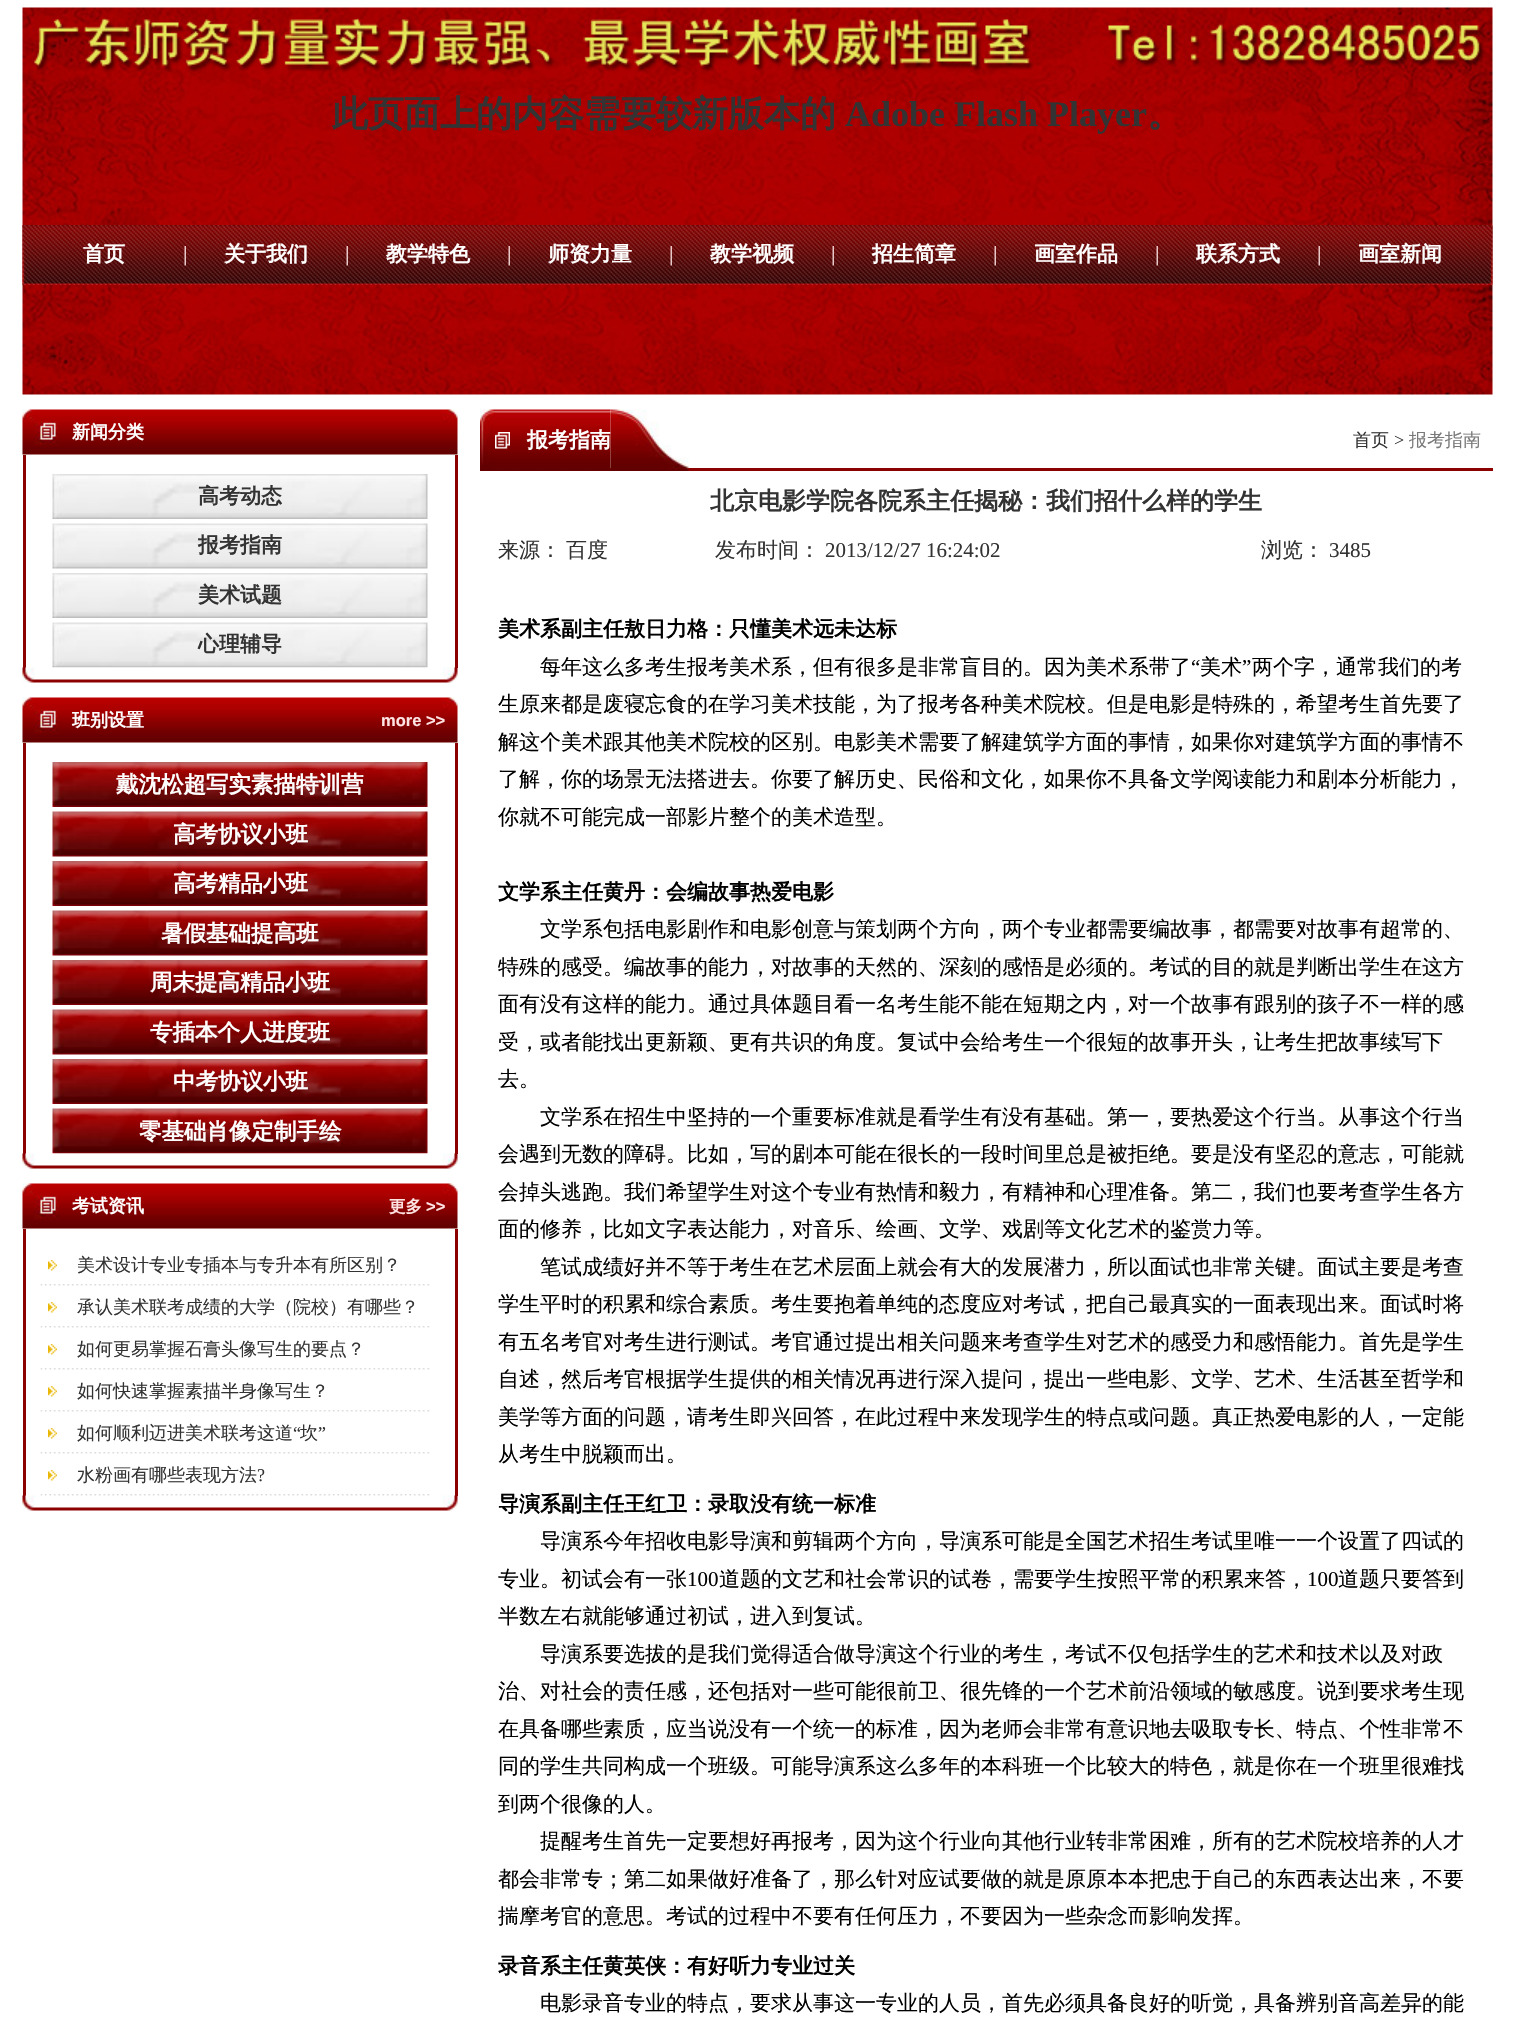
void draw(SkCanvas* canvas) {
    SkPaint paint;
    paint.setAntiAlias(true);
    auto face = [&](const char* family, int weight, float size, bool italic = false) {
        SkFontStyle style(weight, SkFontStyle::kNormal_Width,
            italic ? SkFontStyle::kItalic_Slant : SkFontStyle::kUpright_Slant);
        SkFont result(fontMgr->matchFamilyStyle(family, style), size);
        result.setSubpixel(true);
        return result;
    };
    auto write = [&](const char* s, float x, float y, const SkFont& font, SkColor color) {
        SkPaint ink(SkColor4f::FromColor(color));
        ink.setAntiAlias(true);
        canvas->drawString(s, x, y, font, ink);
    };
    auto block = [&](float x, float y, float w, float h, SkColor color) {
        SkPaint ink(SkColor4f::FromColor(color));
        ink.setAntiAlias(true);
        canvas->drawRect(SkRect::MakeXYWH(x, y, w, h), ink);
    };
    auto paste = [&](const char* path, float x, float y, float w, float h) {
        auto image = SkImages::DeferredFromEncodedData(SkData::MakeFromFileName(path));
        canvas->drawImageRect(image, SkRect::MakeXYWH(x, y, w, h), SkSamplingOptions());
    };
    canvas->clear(SK_ColorWHITE);
    paste("pic1.png", 22, 7, 1471, 388);
    paste("pic2.png", 34, 17, 1451, 56);
    auto kFont1 = face("WenQuanYi Zen Hei", 700, 36);
    write("此页面上的内容需要较新版本的", 332, 126, kFont1, SkColorSetRGB(51, 51, 51));
    auto kFont2 = face("Liberation Serif", 700, 36);
    write("Adobe Flash Player", 845, 126, kFont2, SkColorSetRGB(51, 51, 51));
    write("。", 1147, 126, kFont1, SkColorSetRGB(51, 51, 51));
    paste("pic3.png", 22, 225, 1471, 60);
    auto kFont3 = face("WenQuanYi Zen Hei", 700, 21);
    write("首页", 83, 261, kFont3, SK_ColorWHITE);
    paste("pic4.png", 184, 246, 2, 20);
    write("关于我们", 224, 261, kFont3, SK_ColorWHITE);
    paste("pic5.png", 346, 246, 2, 20);
    write("教学特色", 386, 261, kFont3, SK_ColorWHITE);
    paste("pic4.png", 508, 246, 2, 20);
    write("师资力量", 548, 261, kFont3, SK_ColorWHITE);
    paste("pic5.png", 670, 246, 2, 20);
    write("教学视频", 710, 261, kFont3, SK_ColorWHITE);
    paste("pic4.png", 832, 246, 2, 20);
    write("招生简章", 872, 261, kFont3, SK_ColorWHITE);
    paste("pic5.png", 994, 246, 2, 20);
    write("画室作品", 1034, 261, kFont3, SK_ColorWHITE);
    paste("pic4.png", 1156, 246, 2, 20);
    write("联系方式", 1196, 261, kFont3, SK_ColorWHITE);
    paste("pic5.png", 1318, 246, 2, 20);
    write("画室新闻", 1358, 261, kFont3, SK_ColorWHITE);
    paste("pic6.png", 22, 409, 436, 46);
    auto kFont4 = face("WenQuanYi Zen Hei", 700, 18);
    write("新闻分类", 72, 438, kFont4, SK_ColorWHITE);
    block(455, 455, 3, 213, SkColorSetRGB(140, 0, 0));
    block(23, 455, 3, 213, SkColorSetRGB(140, 0, 0));
    paste("pic7.png", 52, 474, 376, 45);
    write("高考动态", 198, 503, kFont3, SkColorSetRGB(51, 51, 51));
    paste("pic8.png", 52, 523, 376, 46);
    write("报考指南", 198, 552, kFont3, SkColorSetRGB(51, 51, 51));
    paste("pic7.png", 52, 573, 376, 45);
    write("美术试题", 198, 602, kFont3, SkColorSetRGB(51, 51, 51));
    paste("pic8.png", 52, 622, 376, 46);
    write("心理辅导", 198, 651, kFont3, SkColorSetRGB(51, 51, 51));
    paste("pic9.png", 22, 667, 436, 16);
    paste("pic6.png", 22, 697, 436, 46);
    write("班别设置", 72, 726, kFont4, SK_ColorWHITE);
    auto kFont5 = face("Liberation Sans", 700, 16.5f);
    write("more >>", 381, 726, kFont5, SkColorSetRGB(255, 228, 228));
    block(455, 743, 3, 411, SkColorSetRGB(140, 0, 0));
    block(23, 743, 3, 411, SkColorSetRGB(140, 0, 0));
    paste("pic10.png", 52, 762, 376, 45);
    auto kFont6 = face("WenQuanYi Zen Hei", 700, 22.5f);
    write("戴沈松超写实素描特训营", 116, 792, kFont6, SK_ColorWHITE);
    paste("pic11.png", 52, 811, 376, 46);
    write("高考协议小班", 173, 842, kFont6, SK_ColorWHITE);
    paste("pic10.png", 52, 861, 376, 45);
    write("高考精品小班", 173, 891, kFont6, SK_ColorWHITE);
    paste("pic11.png", 52, 910, 376, 46);
    write("暑假基础提高班", 161, 941, kFont6, SK_ColorWHITE);
    paste("pic10.png", 52, 960, 376, 45);
    write("周末提高精品小班", 150, 990, kFont6, SK_ColorWHITE);
    paste("pic11.png", 52, 1009, 376, 46);
    write("专插本个人进度班", 150, 1040, kFont6, SK_ColorWHITE);
    paste("pic10.png", 52, 1059, 376, 45);
    write("中考协议小班", 173, 1089, kFont6, SK_ColorWHITE);
    paste("pic11.png", 52, 1108, 376, 46);
    write("零基础肖像定制手绘", 139, 1139, kFont6, SK_ColorWHITE);
    paste("pic12.png", 22, 1153, 436, 16);
    paste("pic6.png", 22, 1183, 436, 46);
    write("考试资讯", 72, 1212, kFont4, SK_ColorWHITE);
    auto kFont7 = face("WenQuanYi Zen Hei", 700, 16.5f);
    write("更多", 389, 1212, kFont7, SkColorSetRGB(255, 228, 228));
    write(">>", 426, 1212, kFont5, SkColorSetRGB(255, 228, 228));
    block(455, 1229, 3, 267, SkColorSetRGB(140, 0, 0));
    block(23, 1229, 3, 267, SkColorSetRGB(140, 0, 0));
    paste("pic13.png", 40, 1284, 390, 2);
    paste("pic14.png", 48, 1260, 9, 11);
    auto kFont8 = face("WenQuanYi Zen Hei", 500, 18);
    write("美术设计专业专插本与专升本有所区别？", 77, 1271, kFont8, SkColorSetRGB(51, 51, 51));
    paste("pic13.png", 40, 1326, 390, 2);
    paste("pic14.png", 48, 1302, 9, 11);
    write("承认美术联考成绩的大学（院校）有哪些？", 77, 1313, kFont8, SkColorSetRGB(51, 51, 51));
    paste("pic15.png", 40, 1368, 390, 2);
    paste("pic14.png", 48, 1344, 9, 11);
    write("如何更易掌握石膏头像写生的要点？", 77, 1355, kFont8, SkColorSetRGB(51, 51, 51));
    paste("pic13.png", 40, 1410, 390, 2);
    paste("pic14.png", 48, 1386, 9, 11);
    write("如何快速掌握素描半身像写生？", 77, 1397, kFont8, SkColorSetRGB(51, 51, 51));
    paste("pic13.png", 40, 1452, 390, 2);
    paste("pic14.png", 48, 1428, 9, 11);
    write("如何顺利迈进美术联考这道", 77, 1439, kFont8, SkColorSetRGB(51, 51, 51));
    auto kFont9 = face("Liberation Serif", 400, 18);
    write("“", 293, 1439, kFont9, SkColorSetRGB(51, 51, 51));
    write("坎", 300, 1439, kFont8, SkColorSetRGB(51, 51, 51));
    write("”", 318, 1439, kFont9, SkColorSetRGB(51, 51, 51));
    paste("pic16.png", 22, 1495, 436, 16);
    paste("pic13.png", 40, 1494, 390, 2);
    paste("pic14.png", 48, 1470, 9, 11);
    write("水粉画有哪些表现方法", 77, 1481, kFont8, SkColorSetRGB(51, 51, 51));
    write("?", 257, 1481, kFont9, SkColorSetRGB(51, 51, 51));
    block(610, 468, 883, 3, SkColorSetRGB(140, 0, 0));
    paste("pic17.png", 480, 409, 15, 62);
    paste("pic18.png", 495, 409, 116, 62);
    paste("pic19.png", 495, 432, 15, 17);
    write("报考指南", 527, 447, kFont3, SK_ColorWHITE);
    paste("pic20.png", 610, 409, 79, 62);
    write("首页", 1353, 446, kFont8, SkColorSetRGB(51, 51, 51));
    write(">", 1394, 446, kFont9, SkColorSetRGB(51, 51, 51));
    write("报考指南", 1409, 446, kFont8, SkColorSetRGB(121, 121, 121));
    auto kFont10 = face("WenQuanYi Zen Hei", 700, 24);
    write("北京电影学院各院系主任揭秘：我们招什么样的学生", 710, 509, kFont10, SkColorSetRGB(51, 51, 51));
    auto kFont11 = face("WenQuanYi Zen Hei", 500, 21);
    write("来源：", 498, 557, kFont11, SkColorSetRGB(51, 51, 51));
    write("百度", 566, 557, kFont11, SkColorSetRGB(51, 51, 51));
    write("发布时间：", 715, 557, kFont11, SkColorSetRGB(51, 51, 51));
    auto kFont12 = face("Liberation Serif", 400, 21);
    write("2013/12/27 16:24:02", 825, 557, kFont12, SkColorSetRGB(51, 51, 51));
    write("浏览：", 1261, 557, kFont11, SkColorSetRGB(51, 51, 51));
    write("3485", 1329, 557, kFont12, SkColorSetRGB(51, 51, 51));
    write("美术系副主任敖日力格：只懂美术远未达标", 498, 636, kFont3, SK_ColorBLACK);
    write("每年这么多考生报考美术系，但有很多是非常盲目的。因为美术系带了", 540, 674, kFont11, SK_ColorBLACK);
    write("“", 1191, 674, kFont12, SK_ColorBLACK);
    write("美术", 1200, 674, kFont11, SK_ColorBLACK);
    write("”", 1242, 674, kFont12, SK_ColorBLACK);
    write("两个字，通常我们的考", 1252, 674, kFont11, SK_ColorBLACK);
    write("生原来都是废寝忘食的在学习美术技能，为了报考各种美术院校。但是电影是特殊的，希望考生首先要了", 498, 711, kFont11, SK_ColorBLACK);
    write("解这个美术跟其他美术院校的区别。电影美术需要了解建筑学方面的事情，如果你对建筑学方面的事情不", 498, 749, kFont11, SK_ColorBLACK);
    write("了解，你的场景无法搭进去。你要了解历史、民俗和文化，如果你不具备文学阅读能力和剧本分析能力，", 498, 786, kFont11, SK_ColorBLACK);
    write("你就不可能完成一部影片整个的美术造型。", 498, 824, kFont11, SK_ColorBLACK);
    write("文学系主任黄丹：会编故事热爱电影", 498, 899, kFont3, SK_ColorBLACK);
    write("文学系包括电影剧作和电影创意与策划两个方向，两个专业都需要编故事，都需要对故事有超常的、", 540, 936, kFont11, SK_ColorBLACK);
    write("特殊的感受。编故事的能力，对故事的天然的、深刻的感悟是必须的。考试的目的就是判断出学生在这方", 498, 974, kFont11, SK_ColorBLACK);
    write("面有没有这样的能力。通过具体题目看一名考生能不能在短期之内，对一个故事有跟别的孩子不一样的感", 498, 1011, kFont11, SK_ColorBLACK);
    write("受，或者能找出更新颖、更有共识的角度。复试中会给考生一个很短的故事开头，让考生把故事续写下", 498, 1049, kFont11, SK_ColorBLACK);
    write("去。", 498, 1086, kFont11, SK_ColorBLACK);
    write("文学系在招生中坚持的一个重要标准就是看学生有没有基础。第一，要热爱这个行当。从事这个行当", 540, 1124, kFont11, SK_ColorBLACK);
    write("会遇到无数的障碍。比如，写的剧本可能在很长的一段时间里总是被拒绝。要是没有坚忍的意志，可能就", 498, 1161, kFont11, SK_ColorBLACK);
    write("会掉头逃跑。我们希望学生对这个专业有热情和毅力，有精神和心理准备。第二，我们也要考查学生各方", 498, 1199, kFont11, SK_ColorBLACK);
    write("面的修养，比如文字表达能力，对音乐、绘画、文学、戏剧等文化艺术的鉴赏力等。", 498, 1236, kFont11, SK_ColorBLACK);
    write("笔试成绩好并不等于考生在艺术层面上就会有大的发展潜力，所以面试也非常关键。面试主要是考查", 540, 1274, kFont11, SK_ColorBLACK);
    write("学生平时的积累和综合素质。考生要抱着单纯的态度应对考试，把自己最真实的一面表现出来。面试时将", 498, 1311, kFont11, SK_ColorBLACK);
    write("有五名考官对考生进行测试。考官通过提出相关问题来考查学生对艺术的感受力和感悟能力。首先是学生", 498, 1349, kFont11, SK_ColorBLACK);
    write("自述，然后考官根据学生提供的相关情况再进行深入提问，提出一些电影、文学、艺术、生活甚至哲学和", 498, 1386, kFont11, SK_ColorBLACK);
    write("美学等方面的问题，请考生即兴回答，在此过程中来发现学生的特点或问题。真正热爱电影的人，一定能", 498, 1424, kFont11, SK_ColorBLACK);
    write("从考生中脱颖而出。", 498, 1461, kFont11, SK_ColorBLACK);
    write("导演系副主任王红卫：录取没有统一标准", 498, 1511, kFont3, SK_ColorBLACK);
    write("导演系今年招收电影导演和剪辑两个方向，导演系可能是全国艺术招生考试里唯一一个设置了四试的", 540, 1548, kFont11, SK_ColorBLACK);
    write("专业。初试会有一张", 498, 1586, kFont11, SK_ColorBLACK);
    write("100", 687, 1586, kFont12, SK_ColorBLACK);
    write("道题的文艺和社会常识的试卷，需要学生按照平常的积累来答，", 719, 1586, kFont11, SK_ColorBLACK);
    write("100", 1307, 1586, kFont12, SK_ColorBLACK);
    write("道题只要答到", 1338, 1586, kFont11, SK_ColorBLACK);
    write("半数左右就能够通过初试，进入到复试。", 498, 1623, kFont11, SK_ColorBLACK);
    write("导演系要选拔的是我们觉得适合做导演这个行业的考生，考试不仅包括学生的艺术和技术以及对政", 540, 1661, kFont11, SK_ColorBLACK);
    write("治、对社会的责任感，还包括对一些可能很前卫、很先锋的一个艺术前沿领域的敏感度。说到要求考生现", 498, 1698, kFont11, SK_ColorBLACK);
    write("在具备哪些素质，应当说没有一个统一的标准，因为老师会非常有意识地去吸取专长、特点、个性非常不", 498, 1736, kFont11, SK_ColorBLACK);
    write("同的学生共同构成一个班级。可能导演系这么多年的本科班一个比较大的特色，就是你在一个班里很难找", 498, 1773, kFont11, SK_ColorBLACK);
    write("到两个很像的人。", 498, 1811, kFont11, SK_ColorBLACK);
    write("提醒考生首先一定要想好再报考，因为这个行业向其他行业转非常困难，所有的艺术院校培养的人才", 540, 1848, kFont11, SK_ColorBLACK);
    write("都会非常专；第二如果做好准备了，那么针对应试要做的就是原原本本把忠于自己的东西表达出来，不要", 498, 1886, kFont11, SK_ColorBLACK);
    write("揣摩考官的意思。考试的过程中不要有任何压力，不要因为一些杂念而影响发挥。", 498, 1923, kFont11, SK_ColorBLACK);
    write("录音系主任黄英侠：有好听力专业过关", 498, 1973, kFont3, SK_ColorBLACK);
    write("电影录音专业的特点，要求从事这一专业的人员，首先必须具备良好的听觉，具备辨别音高差异的能", 540, 2010, kFont11, SK_ColorBLACK);
}
